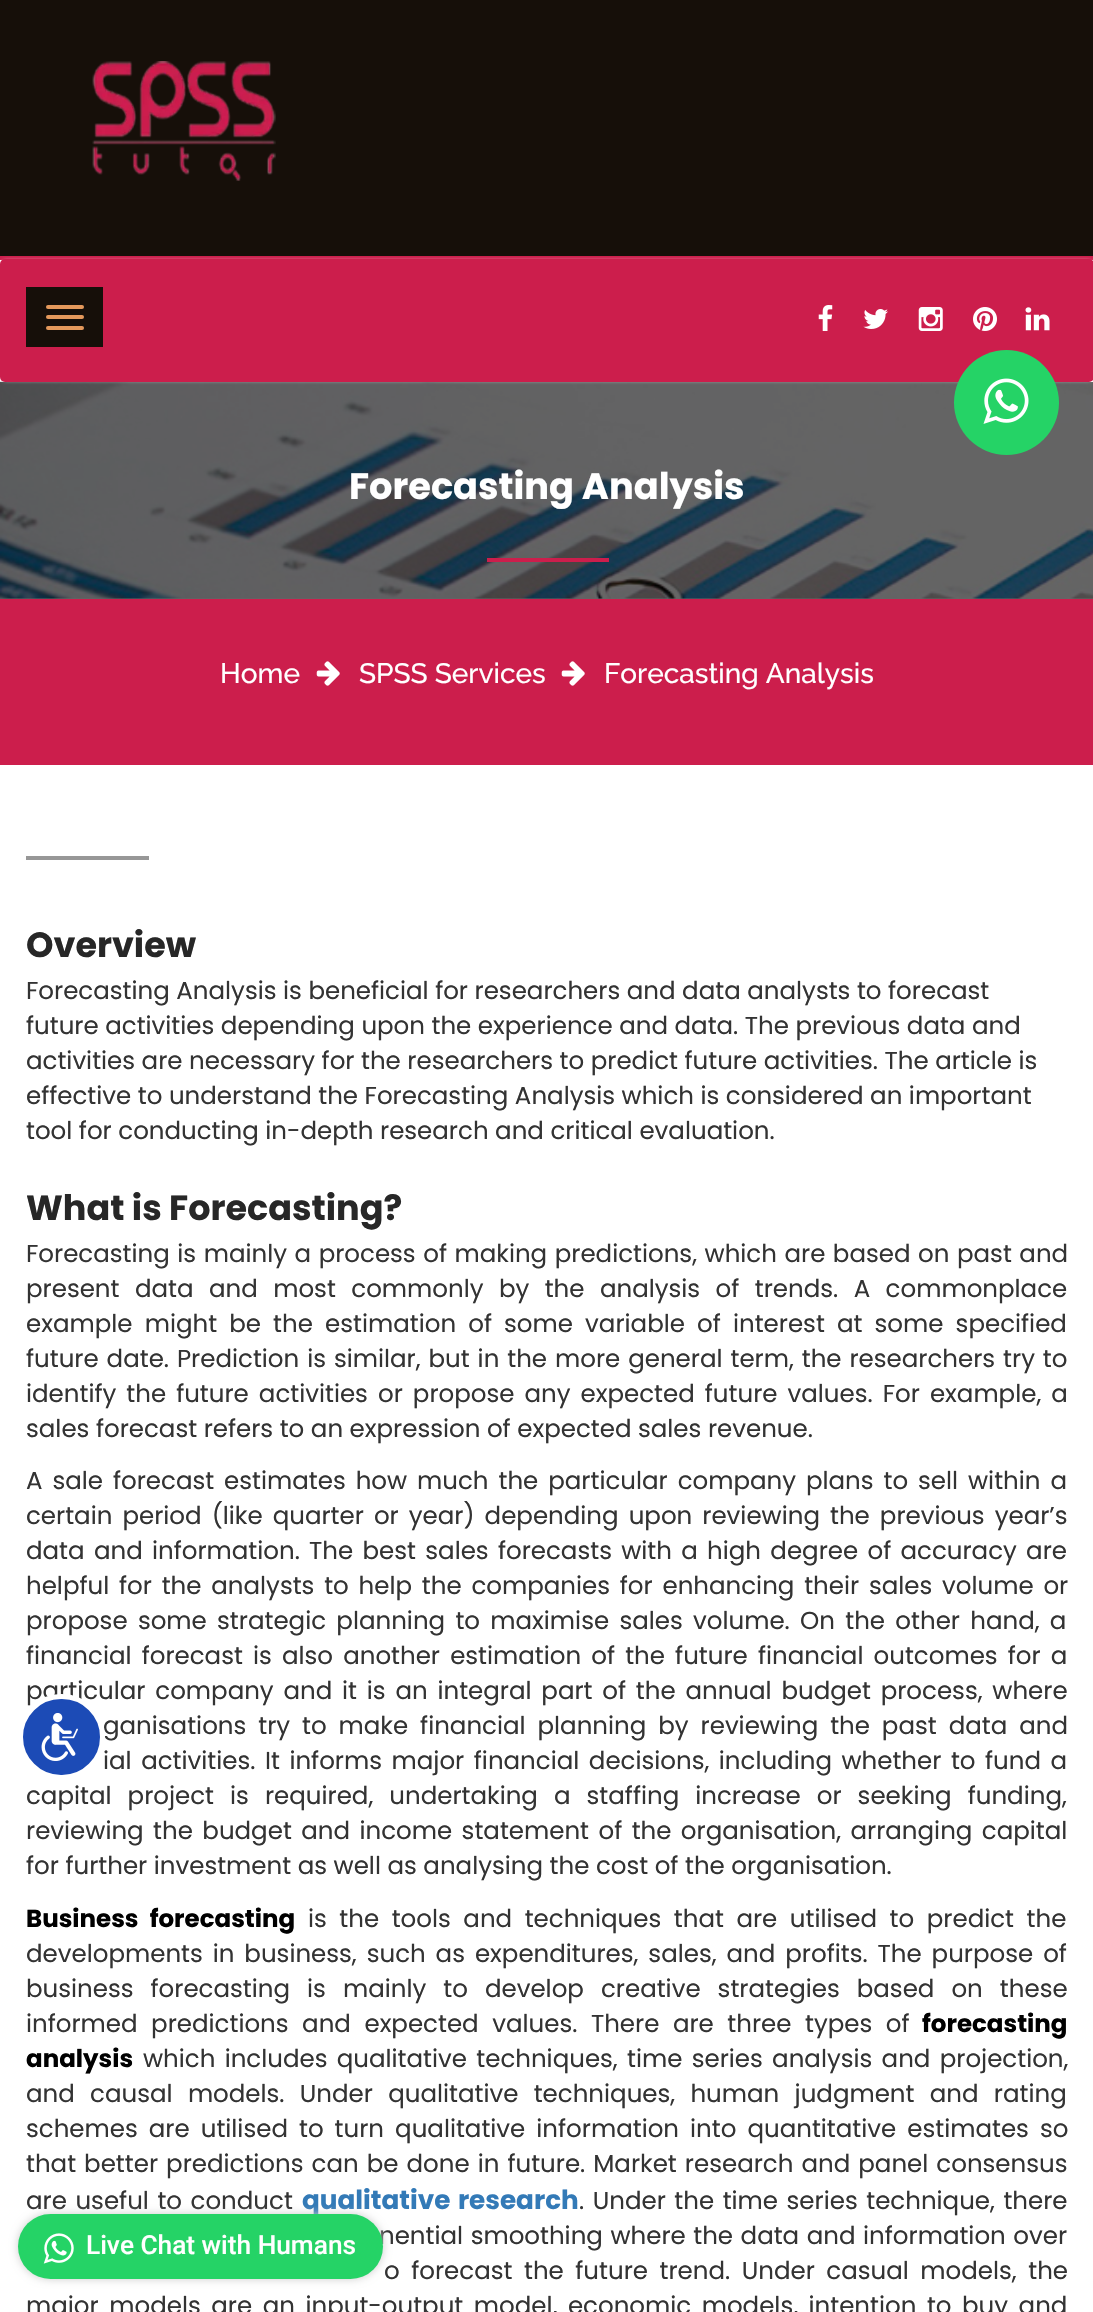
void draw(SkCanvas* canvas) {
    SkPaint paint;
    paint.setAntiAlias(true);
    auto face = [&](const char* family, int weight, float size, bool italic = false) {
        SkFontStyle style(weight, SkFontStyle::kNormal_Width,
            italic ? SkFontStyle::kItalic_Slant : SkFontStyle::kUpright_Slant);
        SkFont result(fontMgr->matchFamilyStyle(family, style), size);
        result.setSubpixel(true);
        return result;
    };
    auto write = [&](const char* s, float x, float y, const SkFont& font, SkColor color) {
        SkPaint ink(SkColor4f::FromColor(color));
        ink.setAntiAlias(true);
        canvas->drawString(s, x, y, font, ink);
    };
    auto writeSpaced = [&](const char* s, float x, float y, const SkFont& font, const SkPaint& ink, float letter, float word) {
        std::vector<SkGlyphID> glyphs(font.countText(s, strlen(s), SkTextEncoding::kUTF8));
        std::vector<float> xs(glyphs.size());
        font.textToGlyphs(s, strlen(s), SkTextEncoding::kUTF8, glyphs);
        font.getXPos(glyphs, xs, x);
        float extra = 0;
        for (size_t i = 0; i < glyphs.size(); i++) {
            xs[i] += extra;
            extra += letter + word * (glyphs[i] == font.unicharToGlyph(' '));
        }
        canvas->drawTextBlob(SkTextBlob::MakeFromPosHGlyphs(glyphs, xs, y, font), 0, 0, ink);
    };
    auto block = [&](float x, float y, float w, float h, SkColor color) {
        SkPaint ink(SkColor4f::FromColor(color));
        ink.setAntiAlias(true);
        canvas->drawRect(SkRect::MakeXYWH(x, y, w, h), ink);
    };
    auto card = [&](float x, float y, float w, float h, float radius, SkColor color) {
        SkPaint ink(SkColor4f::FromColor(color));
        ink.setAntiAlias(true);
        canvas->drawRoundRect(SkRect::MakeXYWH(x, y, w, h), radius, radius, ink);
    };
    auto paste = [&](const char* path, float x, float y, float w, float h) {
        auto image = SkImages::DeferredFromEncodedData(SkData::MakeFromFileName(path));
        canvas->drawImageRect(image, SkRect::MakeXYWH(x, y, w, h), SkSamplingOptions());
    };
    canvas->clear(SK_ColorWHITE);
    block(0, 598, 1093, 1, SkColorSetRGB(102, 102, 102));
    block(0, 0, 1093, 256, SkColorSetRGB(22, 15, 9));
    block(0, 256, 1093, 4, SkColorSetRGB(204, 30, 76));
    paste("pic1.png", 92, 61, 184, 120);
    paste("pic8.png", 0, 381, 1093, 218);
    paint.setColor(SK_ColorWHITE);
    paint.setMaskFilter(SkMaskFilter::MakeBlur(kNormal_SkBlurStyle, 2));
    canvas->drawRoundRect(SkRect::MakeXYWH(2, 261, 1090, 119), 4, 4, paint);
    paint.setMaskFilter(nullptr);
    card(0, 259, 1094, 123, 5, SkColorSetRGB(204, 30, 76));
    block(26, 287, 77, 60, SkColorSetRGB(22, 15, 9));
    card(46, 305, 38, 4, 2, SkColorSetRGB(228, 152, 91));
    card(46, 315, 38, 4, 2, SkColorSetRGB(228, 152, 91));
    card(46, 326, 38, 4, 2, SkColorSetRGB(228, 152, 91));
    paste("pic2.png", 818, 305, 15, 26);
    paste("pic3.png", 863, 309, 25, 20);
    paste("pic4.png", 918, 307, 25, 24);
    paste("pic5.png", 973, 307, 24, 24);
    paste("pic6.png", 1025, 307, 25, 24);
    paint.setColor(SkColorSetRGB(37, 211, 102));
    canvas->drawCircle(1006.5f, 402.5f, 52.5f, paint);
    paste("pic7.png", 983, 378, 46, 46);
    auto kFont1 = face("Poppins", 700, 36.75f);
    write("Forecasting Analysis", 349, 499, kFont1, SK_ColorWHITE);
    block(487, 558, 122, 4, SkColorSetRGB(204, 30, 76));
    block(0, 599, 1093, 166, SkColorSetRGB(204, 30, 76));
    auto kFont2 = face("Raleway", 500, 28);
    write("Home", 220, 683, kFont2, SK_ColorWHITE);
    paste("pic9.png", 316, 661, 24, 25);
    write("SPSS Services", 359, 683, kFont2, SK_ColorWHITE);
    paste("pic9.png", 561, 661, 24, 25);
    write("Forecasting Analysis", 604, 683, kFont2, SK_ColorWHITE);
    block(26, 856, 123, 4, SkColorSetRGB(151, 151, 151));
    auto kFont3 = face("Poppins", 700, 35);
    write("Overview", 26, 957, kFont3, SkColorSetRGB(39, 39, 39));
    auto kFont4 = face("Poppins", 400, 24.5f);
    write("Forecasting Analysis is beneficial for researchers and data analysts to forecast", 26, 999, kFont4, SkColorSetRGB(51, 51, 51));
    write("future activities depending upon the experience and data. The previous data and", 26, 1034, kFont4, SkColorSetRGB(51, 51, 51));
    write("activities are necessary for the researchers to predict future activities. The article is", 26, 1069, kFont4, SkColorSetRGB(51, 51, 51));
    write("effective to understand the Forecasting Analysis which is considered an important", 26, 1104, kFont4, SkColorSetRGB(51, 51, 51));
    write("tool for conducting in-depth research and critical evaluation.", 26, 1139, kFont4, SkColorSetRGB(51, 51, 51));
    write("What is Forecasting?", 26, 1220, kFont3, SkColorSetRGB(39, 39, 39));
    paint.setColor(SkColorSetRGB(51, 51, 51));
    writeSpaced("Forecasting is mainly a process of making predictions, which are based on past and", 26, 1262, kFont4, paint, 0, 1);
    writeSpaced("present data and most commonly by the analysis of trends. A commonplace", 26, 1297, kFont4, paint, 0, 8.9f);
    writeSpaced("example might be the estimation of some variable of interest at some specified", 26, 1332, kFont4, paint, 0, 5.6f);
    writeSpaced("future date. Prediction is similar, but in the more general term, the researchers try to", 26, 1367, kFont4, paint, 0, 1.4f);
    writeSpaced("identify the future activities or propose any expected future values. For example, a", 26, 1402, kFont4, paint, 0, 3.5f);
    write("sales forecast refers to an expression of expected sales revenue.", 26, 1437, kFont4, SkColorSetRGB(51, 51, 51));
    writeSpaced("A sale forecast estimates how much the particular company plans to sell within a", 26, 1489, kFont4, paint, 0, 3.4f);
    writeSpaced("certain period (like quarter or year) depending upon reviewing the previous year’s", 26, 1524, kFont4, paint, 0, 3.5f);
    writeSpaced("data and information. The best sales forecasts with a high degree of accuracy are", 26, 1559, kFont4, paint, 0, 2.75f);
    writeSpaced("helpful for the analysts to help the companies for enhancing their sales volume or", 26, 1594, kFont4, paint, 0, 3.25f);
    writeSpaced("propose some strategic planning to maximise sales volume. On the other hand, a", 26, 1629, kFont4, paint, 0, 3.75f);
    writeSpaced("financial forecast is also another estimation of the future financial outcomes for a", 26, 1664, kFont4, paint, 0, 3.6f);
    writeSpaced("particular company and it is an integral part of the annual budget process, where", 26, 1699, kFont4, paint, 0, 3.25f);
    writeSpaced("ganisations try to make financial planning by reviewing the past data and", 103, 1734, kFont4, paint, 0, 5.4f);
    writeSpaced("ial activities. It informs major financial decisions, including whether to fund a", 103, 1769, kFont4, paint, 0, 3);
    writeSpaced("capital project is required, undertaking a staffing increase or seeking funding,", 26, 1804, kFont4, paint, 0, 9.5f);
    writeSpaced("reviewing the budget and income statement of the organisation, arranging capital", 26, 1839, kFont4, paint, 0, 2.9f);
    write("for further investment as well as analysing the cost of the organisation.", 26, 1874, kFont4, SkColorSetRGB(51, 51, 51));
    auto kFont5 = face("Poppins", 700, 24.5f);
    paint.setColor(SK_ColorBLACK);
    writeSpaced("Business forecasting", 26, 1927, kFont5, paint, 0, 6);
    paint.setColor(SkColorSetRGB(51, 51, 51));
    writeSpaced("is the tools and techniques that are utilised to predict the", 308, 1927, kFont4, paint, 0, 6);
    writeSpaced("developments in business, such as expenditures, sales, and profits. The purpose of", 26, 1962, kFont4, paint, 0, 3.4f);
    writeSpaced("business forecasting is mainly to develop creative strategies based on these", 26, 1997, kFont4, paint, 0, 10.5f);
    writeSpaced("informed predictions and expected values. There are three types of", 26, 2032, kFont4, paint, 0, 7);
    write("forecasting", 922, 2032, kFont5, SK_ColorBLACK);
    write("analysis", 26, 2067, kFont5, SK_ColorBLACK);
    writeSpaced("which includes qualitative techniques, time series analysis and projection,", 143, 2067, kFont4, paint, 0, 2.75f);
    writeSpaced("and causal models. Under qualitative techniques, human judgment and rating", 26, 2102, kFont4, paint, 0, 8.75f);
    writeSpaced("schemes are utilised to turn qualitative information into quantitative estimates so", 26, 2137, kFont4, paint, 0, 4.5f);
    writeSpaced("that better predictions can be done in future. Market research and panel consensus", 26, 2172, kFont4, paint, 0, 1.5f);
    writeSpaced("are useful to conduct", 26, 2209, kFont4, paint, 0, 2);
    auto kFont6 = face("Poppins", 700, 26.25f);
    paint.setColor(SkColorSetRGB(51, 122, 183));
    writeSpaced("qualitative research", 302, 2209, kFont6, paint, 0, 2);
    paint.setColor(SkColorSetRGB(51, 51, 51));
    writeSpaced(". Under the time series technique, there", 579, 2209, kFont4, paint, 0, 2);
    writeSpaced("nential smoothing where the data and information over", 379, 2244, kFont4, paint, 0, 1);
    writeSpaced("o forecast the future trend. Under casual models, the", 384, 2279, kFont4, paint, 0, 5);
    writeSpaced("major models are an input-output model, economic models, intention to buy and", 26, 2314, kFont4, paint, 0, 4);
    paint.setColor(SkColorSetRGB(28, 75, 182));
    canvas->drawRoundRect(SkRect::MakeXYWH(20.5f, 1696.5f, 82, 81), 40.5f, 40.5f, paint);
    paint.setStyle(SkPaint::kStroke_Style);
    paint.setStrokeWidth(5);
    paint.setColor(SK_ColorWHITE);
    canvas->drawRoundRect(SkRect::MakeXYWH(20.5f, 1696.5f, 82, 81), 40.5f, 40.5f, paint);
    paste("pic10.png", 41, 1713, 37, 48);
    paint.setStyle(SkPaint::kFill_Style);
    paint.setColor(SkColorSetRGB(204, 204, 204));
    paint.setMaskFilter(SkMaskFilter::MakeBlur(kNormal_SkBlurStyle, 4.5f));
    canvas->drawRoundRect(SkRect::MakeXYWH(18, 2214, 365, 65), 32.5f, 32.5f, paint);
    paint.setMaskFilter(nullptr);
    card(18, 2214, 365, 65, 32.5f, SkColorSetRGB(37, 211, 102));
    paste("pic11.png", 43, 2233, 31, 31);
    auto kFont7 = face("Roboto", 500, 26.25f);
    write("Live Chat with Humans", 86, 2254, kFont7, SK_ColorWHITE);
}
